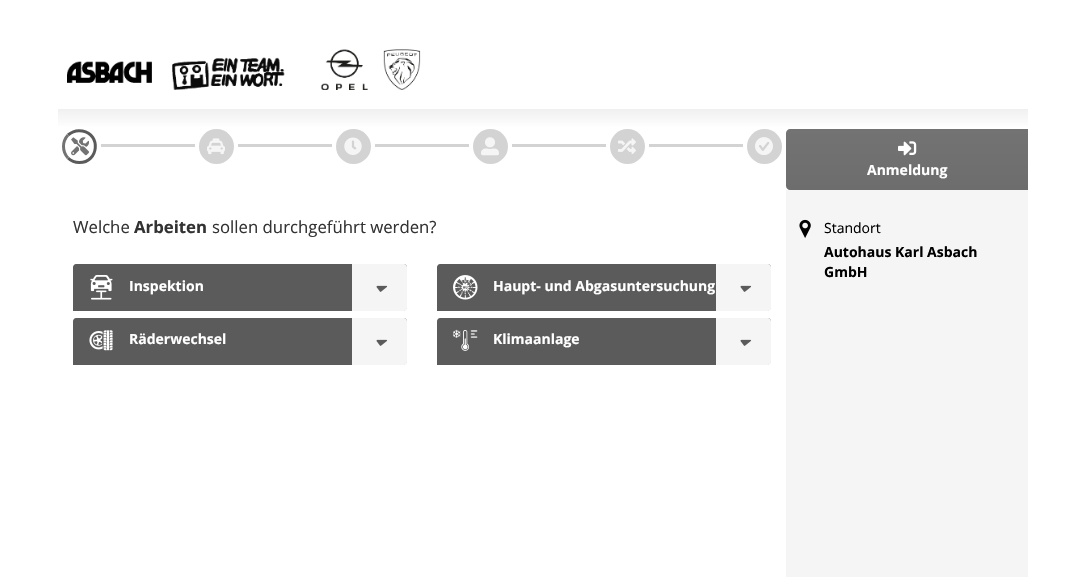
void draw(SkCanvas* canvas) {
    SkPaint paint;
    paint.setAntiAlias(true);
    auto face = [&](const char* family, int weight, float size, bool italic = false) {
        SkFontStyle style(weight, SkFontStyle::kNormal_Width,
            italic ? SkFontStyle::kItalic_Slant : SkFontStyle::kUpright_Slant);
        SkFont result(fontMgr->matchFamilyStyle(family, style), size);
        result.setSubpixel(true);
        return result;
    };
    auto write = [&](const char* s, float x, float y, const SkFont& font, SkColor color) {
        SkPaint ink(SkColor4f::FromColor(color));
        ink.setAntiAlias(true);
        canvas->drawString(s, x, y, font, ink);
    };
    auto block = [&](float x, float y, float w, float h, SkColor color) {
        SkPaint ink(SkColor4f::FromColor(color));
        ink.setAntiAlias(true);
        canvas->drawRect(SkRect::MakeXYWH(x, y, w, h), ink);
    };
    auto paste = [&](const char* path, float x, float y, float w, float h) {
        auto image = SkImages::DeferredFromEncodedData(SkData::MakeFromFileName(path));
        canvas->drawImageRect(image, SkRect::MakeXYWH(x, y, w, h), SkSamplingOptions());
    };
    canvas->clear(SK_ColorWHITE);
    paste("pic1.png", 67, 49, 354, 41);
    {
        const SkColor colors[] = {SkColorSetRGB(240, 240, 240), SK_ColorWHITE};
        const float stops[] = {0, 1};
        const SkPoint ends[] = {{543, 109}, {543, 129}};
        paint.setShader(SkGradientShader::MakeLinear(ends, colors, stops, 2, SkTileMode::kClamp));
        paint.setAlpha(255);
    }
    canvas->drawRect(SkRect::MakeXYWH(58, 109, 970, 17), paint);
    paint.setStyle(SkPaint::kStroke_Style);
    paint.setStrokeWidth(3);
    paint.setShader(nullptr);
    paint.setColor(SkColorSetRGB(91, 91, 91));
    canvas->drawPath(SkPathBuilder().moveTo(68, 135).cubicTo(72, 131.5f, 77.5f, 130, 82.5f, 131).cubicTo(101.5f, 134.5f, 98.5f, 162.5f, 79.5f, 162.5f).cubicTo(75.5f, 162.5f, 71, 161, 68, 158).detach(), paint);
    paint.setColor(SkColorSetRGB(115, 115, 115));
    canvas->drawPath(SkPathBuilder().moveTo(68, 158).cubicTo(62, 151.5f, 62, 141.5f, 68, 135).detach(), paint);
    paste("pic2.png", 71, 137, 18, 19);
    block(101, 144, 94, 3, SkColorSetRGB(211, 211, 211));
    paint.setStyle(SkPaint::kFill_Style);
    paint.setColor(SkColorSetRGB(211, 211, 211));
    canvas->drawCircle(216.5f, 146.5f, 17.5f, paint);
    paste("pic3.png", 207, 138, 18, 17);
    block(238, 144, 94, 3, SkColorSetRGB(211, 211, 211));
    canvas->drawCircle(353.5f, 146.5f, 17.5f, paint);
    paste("pic4.png", 344, 137, 18, 18);
    block(375, 144, 94, 3, SkColorSetRGB(211, 211, 211));
    canvas->drawCircle(490.5f, 146.5f, 17.5f, paint);
    paste("pic5.png", 481, 137, 18, 19);
    block(512, 144, 94, 3, SkColorSetRGB(211, 211, 211));
    canvas->drawCircle(627.5f, 146.5f, 17.5f, paint);
    paste("pic6.png", 618, 138, 18, 16);
    block(649, 144, 94, 3, SkColorSetRGB(211, 211, 211));
    canvas->drawCircle(764.5f, 146.5f, 17.5f, paint);
    paste("pic7.png", 755, 137, 18, 18);
    {
        const SkColor colors[] = {SkColorSetRGB(115, 115, 115), SkColorSetRGB(109, 109, 109)};
        const float stops[] = {0, 1};
        const SkPoint ends[] = {{907, 129}, {907, 190}};
        paint.setShader(SkGradientShader::MakeLinear(ends, colors, stops, 2, SkTileMode::kClamp));
        paint.setAlpha(255);
    }
    canvas->drawPath(SkPathBuilder().moveTo(790, 129).lineTo(1028, 129).lineTo(1028, 190).lineTo(790, 190).cubicTo(788, 190, 786, 188, 786, 186).lineTo(786, 133).cubicTo(786, 131, 788, 129, 790, 129).close().detach(), paint);
    paste("pic8.png", 898, 141, 19, 15);
    auto kFont1 = face("Open Sans", 700, 14);
    write("Anmeldung", 867, 175, kFont1, SK_ColorWHITE);
    auto kFont2 = face("Open Sans", 400, 16.75f);
    write("Welche", 73, 233, kFont2, SkColorSetRGB(51, 51, 51));
    auto kFont3 = face("Open Sans", 700, 16.75f);
    write("Arbeiten", 134, 233, kFont3, SkColorSetRGB(51, 51, 51));
    write("sollen durchgeführt werden?", 212, 233, kFont2, SkColorSetRGB(51, 51, 51));
    paint.setShader(nullptr);
    paint.setColor(SkColorSetRGB(91, 91, 91));
    canvas->drawPath(SkPathBuilder().moveTo(76, 264).lineTo(404, 264).cubicTo(405.5f, 264, 407, 265.5f, 407, 267).lineTo(407, 306).cubicTo(407, 309, 405, 311, 402, 311).lineTo(73, 311).lineTo(73, 267).cubicTo(73, 265.5f, 74.5f, 264, 76, 264).close().detach(), paint);
    paste("pic9.png", 90, 275, 23, 25);
    write("Inspektion", 129, 291, kFont1, SK_ColorWHITE);
    paint.setColor(SkColorSetRGB(245, 245, 245));
    canvas->drawPath(SkPathBuilder().moveTo(352, 264).lineTo(404, 264).cubicTo(405.5f, 264, 407, 265.5f, 407, 267).lineTo(407, 308).cubicTo(407, 309.5f, 405.5f, 311, 404, 311).lineTo(352, 311).close().detach(), paint);
    paste("pic10.png", 376, 285, 12, 7);
    paint.setColor(SkColorSetRGB(91, 91, 91));
    canvas->drawPath(SkPathBuilder().moveTo(76, 318).lineTo(404, 318).cubicTo(405.5f, 318, 407, 319.5f, 407, 321).lineTo(407, 360).cubicTo(407, 363, 405, 365, 402, 365).lineTo(73, 365).lineTo(73, 321).cubicTo(73, 319.5f, 74.5f, 318, 76, 318).close().detach(), paint);
    paste("pic11.png", 89, 330, 24, 21);
    write("Räderwechsel", 129, 344, kFont1, SK_ColorWHITE);
    paint.setColor(SkColorSetRGB(245, 245, 245));
    canvas->drawPath(SkPathBuilder().moveTo(352, 318).lineTo(404, 318).cubicTo(405.5f, 318, 407, 319.5f, 407, 321).lineTo(407, 362).cubicTo(407, 363.5f, 405.5f, 365, 404, 365).lineTo(352, 365).close().detach(), paint);
    paste("pic10.png", 376, 339, 12, 7);
    paint.setColor(SkColorSetRGB(91, 91, 91));
    canvas->drawPath(SkPathBuilder().moveTo(440, 264).lineTo(768, 264).cubicTo(769.5f, 264, 771, 265.5f, 771, 267).lineTo(771, 306).cubicTo(771, 309, 769, 311, 766, 311).lineTo(437, 311).lineTo(437, 267).cubicTo(437, 265.5f, 438.5f, 264, 440, 264).close().detach(), paint);
    paste("pic12.png", 453, 275, 25, 25);
    write("Haupt- und Abgasuntersuchung", 493, 291, kFont1, SK_ColorWHITE);
    paint.setColor(SkColorSetRGB(245, 245, 245));
    canvas->drawPath(SkPathBuilder().moveTo(716, 264).lineTo(768, 264).cubicTo(769.5f, 264, 771, 265.5f, 771, 267).lineTo(771, 308).cubicTo(771, 309.5f, 769.5f, 311, 768, 311).lineTo(716, 311).close().detach(), paint);
    paste("pic10.png", 740, 285, 12, 7);
    paint.setColor(SkColorSetRGB(91, 91, 91));
    canvas->drawPath(SkPathBuilder().moveTo(440, 318).lineTo(768, 318).cubicTo(769.5f, 318, 771, 319.5f, 771, 321).lineTo(771, 360).cubicTo(771, 363, 769, 365, 766, 365).lineTo(437, 365).lineTo(437, 321).cubicTo(437, 319.5f, 438.5f, 318, 440, 318).close().detach(), paint);
    paste("pic13.png", 453, 329, 25, 22);
    write("Klimaanlage", 493, 344, kFont1, SK_ColorWHITE);
    paint.setColor(SkColorSetRGB(245, 245, 245));
    canvas->drawPath(SkPathBuilder().moveTo(716, 318).lineTo(768, 318).cubicTo(769.5f, 318, 771, 319.5f, 771, 321).lineTo(771, 362).cubicTo(771, 363.5f, 769.5f, 365, 768, 365).lineTo(716, 365).close().detach(), paint);
    paste("pic10.png", 740, 339, 12, 7);
    block(786, 190, 242, 387, SkColorSetRGB(245, 245, 245));
    paste("pic14.png", 799, 219, 12, 19);
    auto kFont4 = face("Open Sans", 400, 14);
    write("Standort", 824, 233, kFont4, SK_ColorBLACK);
    write("Autohaus Karl Asbach", 824, 257, kFont1, SK_ColorBLACK);
    write("GmbH", 824, 277, kFont1, SK_ColorBLACK);
}
